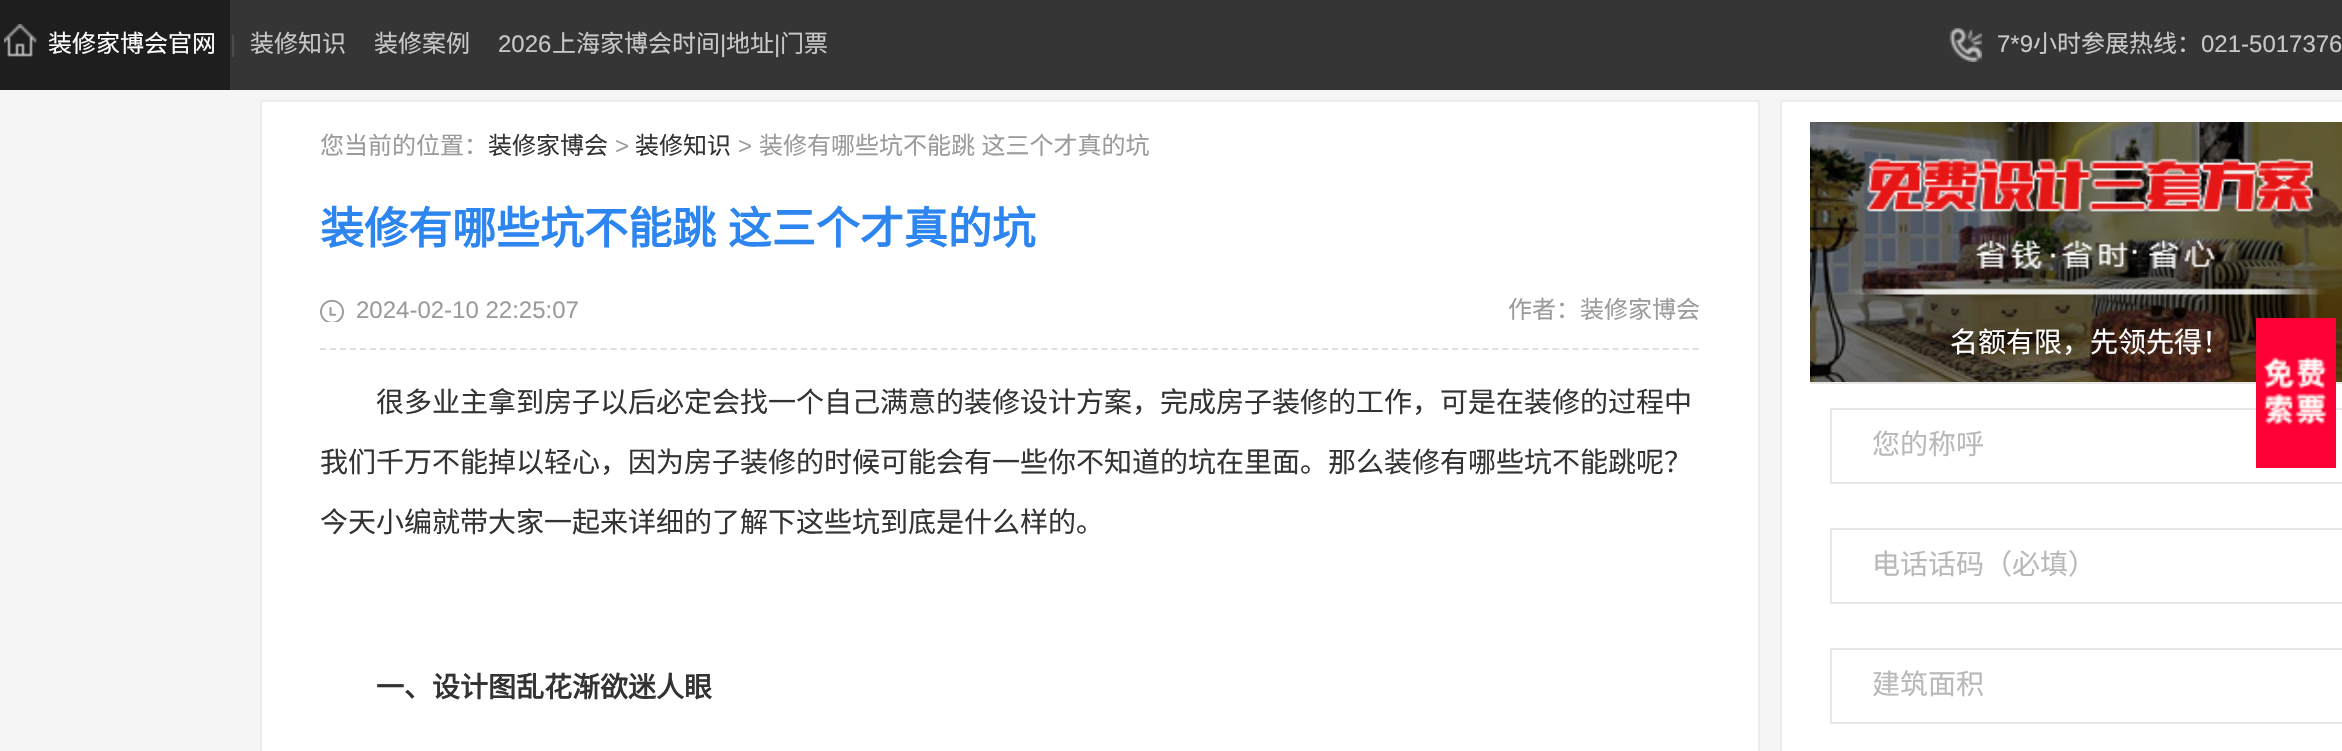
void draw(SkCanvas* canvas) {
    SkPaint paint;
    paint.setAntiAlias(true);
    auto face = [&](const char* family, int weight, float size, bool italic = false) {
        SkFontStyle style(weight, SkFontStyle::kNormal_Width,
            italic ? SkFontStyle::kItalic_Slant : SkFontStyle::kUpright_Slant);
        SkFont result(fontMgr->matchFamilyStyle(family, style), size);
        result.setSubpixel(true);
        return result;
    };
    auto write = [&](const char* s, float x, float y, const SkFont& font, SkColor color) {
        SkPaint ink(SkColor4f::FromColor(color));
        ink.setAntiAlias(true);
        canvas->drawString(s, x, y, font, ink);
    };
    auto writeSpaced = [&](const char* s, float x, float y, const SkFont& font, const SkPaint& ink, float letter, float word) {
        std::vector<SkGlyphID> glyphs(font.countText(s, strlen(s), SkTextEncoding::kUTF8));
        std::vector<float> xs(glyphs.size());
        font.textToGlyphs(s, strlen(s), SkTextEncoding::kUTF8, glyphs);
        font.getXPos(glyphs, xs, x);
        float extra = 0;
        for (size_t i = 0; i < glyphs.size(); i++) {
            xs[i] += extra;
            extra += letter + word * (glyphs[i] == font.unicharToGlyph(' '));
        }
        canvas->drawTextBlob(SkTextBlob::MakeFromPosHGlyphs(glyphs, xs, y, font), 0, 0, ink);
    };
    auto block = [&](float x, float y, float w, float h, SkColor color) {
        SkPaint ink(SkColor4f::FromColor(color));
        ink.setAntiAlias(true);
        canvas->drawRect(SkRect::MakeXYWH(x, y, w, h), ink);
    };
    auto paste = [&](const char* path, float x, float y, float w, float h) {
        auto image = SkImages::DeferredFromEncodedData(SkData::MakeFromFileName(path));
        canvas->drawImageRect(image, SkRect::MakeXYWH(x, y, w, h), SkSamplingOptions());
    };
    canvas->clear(SkColorSetRGB(245, 245, 245));
    block(230, 0, 2112, 90, SkColorSetRGB(53, 53, 53));
    block(0, 0, 230, 90, SkColorSetRGB(30, 30, 30));
    paste("pic1.png", 4, 24, 33, 33);
    auto kFont1 = face("Noto Sans CJK SC", 400, 24);
    write("装修家博会官网", 48, 52, kFont1, SK_ColorWHITE);
    auto kFont2 = face("Liberation Sans", 400, 24);
    write("|", 230, 52, kFont2, SkColorSetRGB(75, 75, 75));
    write("装修知识", 250, 52, kFont1, SkColorSetRGB(200, 200, 200));
    write("装修案例", 374, 52, kFont1, SkColorSetRGB(200, 200, 200));
    write("2026", 498, 52, kFont2, SkColorSetRGB(200, 200, 200));
    write("上海家博会时间", 552, 52, kFont1, SkColorSetRGB(200, 200, 200));
    write("|", 720, 52, kFont2, SkColorSetRGB(200, 200, 200));
    write("地址", 726, 52, kFont1, SkColorSetRGB(200, 200, 200));
    write("|", 774, 52, kFont2, SkColorSetRGB(200, 200, 200));
    write("门票", 780, 52, kFont1, SkColorSetRGB(200, 200, 200));
    paste("pic2.png", 1949, 28, 33, 34);
    write("7*9", 1997, 52, kFont2, SkColorSetRGB(200, 200, 200));
    write("小时参展热线：", 2033, 52, kFont1, SkColorSetRGB(200, 200, 200));
    write("021-5017376", 2201, 52, kFont2, SkColorSetRGB(200, 200, 200));
    paint.setColor(SK_ColorWHITE);
    canvas->drawRect(SkRect::MakeXYWH(261, 101, 1498, 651), paint);
    paint.setStyle(SkPaint::kStroke_Style);
    paint.setStrokeWidth(2);
    paint.setColor(SkColorSetRGB(235, 235, 235));
    canvas->drawRect(SkRect::MakeXYWH(261, 101, 1498, 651), paint);
    write("您当前的位置：", 320, 154, kFont1, SkColorSetRGB(155, 155, 155));
    write("装修家博会", 488, 154, kFont1, SkColorSetRGB(51, 51, 51));
    write(">", 615, 154, kFont2, SkColorSetRGB(155, 155, 155));
    write("装修知识", 635, 154, kFont1, SkColorSetRGB(51, 51, 51));
    write(">", 738, 154, kFont2, SkColorSetRGB(155, 155, 155));
    paint.setStyle(SkPaint::kFill_Style);
    paint.setColor(SkColorSetRGB(155, 155, 155));
    writeSpaced("装修有哪些坑不能跳 这三个才真的坑", 759, 154, kFont1, paint, 0, 1);
    auto kFont3 = face("Noto Sans CJK SC", 700, 44);
    paint.setColor(SkColorSetRGB(45, 133, 240));
    writeSpaced("装修有哪些坑不能跳 这三个才真的坑", 320, 244, kFont3, paint, 0, 2);
    paint.setStyle(SkPaint::kStroke_Style);
    paint.setColor(SkColorSetRGB(224, 224, 224));
    paint.setPathEffect(SkDashPathEffect::Make({{6, 4.02f}}, 0));
    canvas->drawPath(SkPathBuilder().moveTo(320, 349).lineTo(1700, 349).detach(), paint);
    paint.setPathEffect(nullptr);
    paste("pic3.png", 320, 299, 24, 23);
    write("2024-02-10 22:25:07", 356, 318, kFont2, SkColorSetRGB(155, 155, 155));
    write("作者：装修家博会", 1508, 318, kFont1, SkColorSetRGB(155, 155, 155));
    auto kFont4 = face("Noto Sans CJK SC", 400, 28);
    write("很多业主拿到房子以后必定会找一个自己满意的装修设计方案，完成房子装修的工作，可是在装修的过程中", 376, 412, kFont4, SkColorSetRGB(51, 51, 51));
    write("我们千万不能掉以轻心，因为房子装修的时候可能会有一些你不知道的坑在里面。那么装修有哪些坑不能跳呢？", 320, 472, kFont4, SkColorSetRGB(51, 51, 51));
    write("今天小编就带大家一起来详细的了解下这些坑到底是什么样的。", 320, 532, kFont4, SkColorSetRGB(51, 51, 51));
    auto kFont5 = face("Noto Sans CJK SC", 700, 28);
    write("一、设计图乱花渐欲迷人眼", 376, 697, kFont5, SkColorSetRGB(51, 51, 51));
    paint.setStyle(SkPaint::kFill_Style);
    paint.setColor(SK_ColorWHITE);
    canvas->drawRect(SkRect::MakeXYWH(1781, 101, 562, 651), paint);
    paint.setStyle(SkPaint::kStroke_Style);
    paint.setColor(SkColorSetRGB(235, 235, 235));
    canvas->drawRect(SkRect::MakeXYWH(1781, 101, 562, 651), paint);
    paste("pic4.png", 1810, 122, 532, 260);
    write("名额有限，先领先得！", 1950, 352, kFont4, SK_ColorWHITE);
    block(1810, 382, 532, 2, SkColorSetRGB(231, 231, 231));
    paint.setColor(SkColorSetRGB(231, 231, 231));
    canvas->drawRect(SkRect::MakeXYWH(1831, 409, 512, 74), paint);
    write("您的称呼", 1872, 454, kFont4, SkColorSetRGB(185, 185, 185));
    canvas->drawRect(SkRect::MakeXYWH(1831, 529, 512, 74), paint);
    write("电话话码（必填）", 1872, 574, kFont4, SkColorSetRGB(185, 185, 185));
    canvas->drawRect(SkRect::MakeXYWH(1831, 649, 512, 74), paint);
    write("建筑面积", 1872, 694, kFont4, SkColorSetRGB(185, 185, 185));
    paste("pic5.png", 2256, 318, 80, 150);
}
